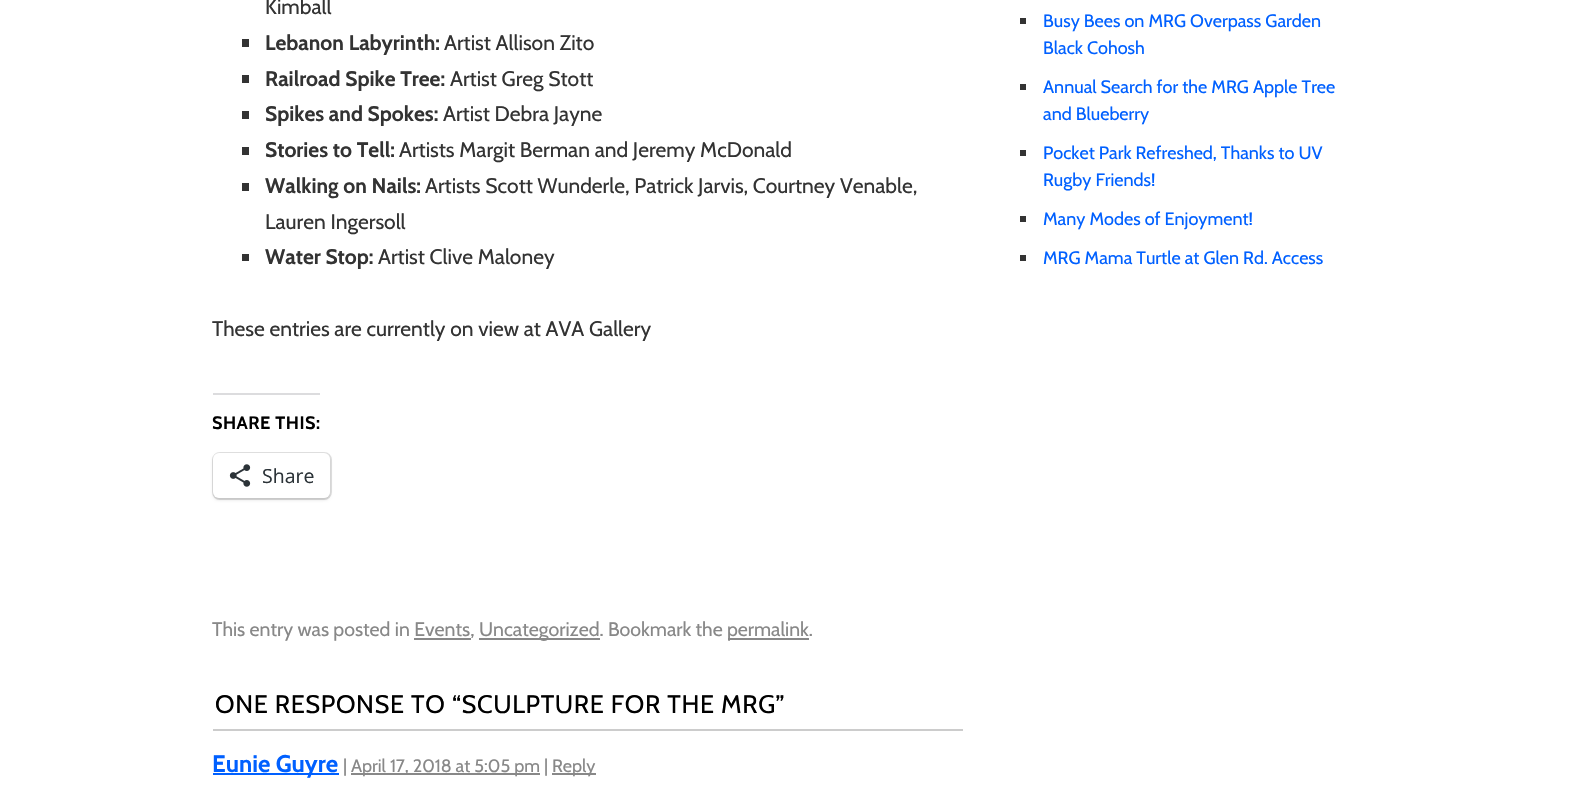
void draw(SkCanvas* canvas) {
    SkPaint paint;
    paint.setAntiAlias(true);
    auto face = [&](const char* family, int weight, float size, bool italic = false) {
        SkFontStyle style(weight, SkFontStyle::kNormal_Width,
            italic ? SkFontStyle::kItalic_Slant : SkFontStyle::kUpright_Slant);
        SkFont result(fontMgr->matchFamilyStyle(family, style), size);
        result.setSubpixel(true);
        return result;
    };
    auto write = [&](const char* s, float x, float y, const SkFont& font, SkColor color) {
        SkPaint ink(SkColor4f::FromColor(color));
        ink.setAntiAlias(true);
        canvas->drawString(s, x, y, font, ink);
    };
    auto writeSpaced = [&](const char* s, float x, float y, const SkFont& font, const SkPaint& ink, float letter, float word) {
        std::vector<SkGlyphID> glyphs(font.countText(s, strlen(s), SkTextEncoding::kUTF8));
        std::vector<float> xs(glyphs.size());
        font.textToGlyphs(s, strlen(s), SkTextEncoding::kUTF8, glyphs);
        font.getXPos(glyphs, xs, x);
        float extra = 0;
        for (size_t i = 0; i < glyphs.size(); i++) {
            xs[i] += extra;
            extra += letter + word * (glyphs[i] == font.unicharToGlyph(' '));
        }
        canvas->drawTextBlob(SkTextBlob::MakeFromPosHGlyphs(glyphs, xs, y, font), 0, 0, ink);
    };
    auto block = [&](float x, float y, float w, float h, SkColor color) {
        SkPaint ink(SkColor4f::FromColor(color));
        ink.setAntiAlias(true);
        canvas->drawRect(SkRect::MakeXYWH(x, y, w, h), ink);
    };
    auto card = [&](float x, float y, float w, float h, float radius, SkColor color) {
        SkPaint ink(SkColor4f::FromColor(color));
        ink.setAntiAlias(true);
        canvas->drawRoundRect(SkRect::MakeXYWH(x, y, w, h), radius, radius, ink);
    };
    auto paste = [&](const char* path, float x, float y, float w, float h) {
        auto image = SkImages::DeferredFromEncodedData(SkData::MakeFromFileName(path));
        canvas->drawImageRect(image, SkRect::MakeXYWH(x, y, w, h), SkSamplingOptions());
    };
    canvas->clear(SK_ColorWHITE);
    auto kFont1 = face("Cabin", 400, 21);
    write("Kimball", 265, 14, kFont1, SkColorSetRGB(51, 51, 51));
    block(242, 39, 7, 8, SkColorSetRGB(51, 51, 51));
    auto kFont2 = face("Cabin", 700, 21);
    write("Lebanon Labyrinth:", 265, 50, kFont2, SkColorSetRGB(51, 51, 51));
    write("Artist Allison Zito", 444, 50, kFont1, SkColorSetRGB(51, 51, 51));
    block(242, 75, 7, 8, SkColorSetRGB(51, 51, 51));
    write("Railroad Spike Tree:", 265, 86, kFont2, SkColorSetRGB(51, 51, 51));
    write("Artist Greg Stott", 450, 86, kFont1, SkColorSetRGB(51, 51, 51));
    block(242, 111, 7, 8, SkColorSetRGB(51, 51, 51));
    write("Spikes and Spokes:", 265, 121, kFont2, SkColorSetRGB(51, 51, 51));
    write("Artist Debra Jayne", 443, 121, kFont1, SkColorSetRGB(51, 51, 51));
    block(242, 147, 7, 8, SkColorSetRGB(51, 51, 51));
    write("Stories to Tell:", 265, 157, kFont2, SkColorSetRGB(51, 51, 51));
    write("Artists Margit Berman and Jeremy McDonald", 399, 157, kFont1, SkColorSetRGB(51, 51, 51));
    block(242, 183, 7, 8, SkColorSetRGB(51, 51, 51));
    write("Walking on Nails:", 265, 193, kFont2, SkColorSetRGB(51, 51, 51));
    write("Artists Scott Wunderle, Patrick Jarvis, Courtney Venable,", 425, 193, kFont1, SkColorSetRGB(51, 51, 51));
    write("Lauren Ingersoll", 265, 229, kFont1, SkColorSetRGB(51, 51, 51));
    block(242, 254, 7, 7, SkColorSetRGB(51, 51, 51));
    write("Water Stop:", 265, 264, kFont2, SkColorSetRGB(51, 51, 51));
    write("Artist Clive Maloney", 378, 264, kFont1, SkColorSetRGB(51, 51, 51));
    write("These entries are currently on view at AVA Gallery", 212, 336, kFont1, SkColorSetRGB(51, 51, 51));
    block(213, 393, 107, 2, SkColorSetRGB(220, 220, 222));
    auto kFont3 = face("Cabin", 700, 18);
    paint.setColor(SK_ColorBLACK);
    writeSpaced("SHARE THIS:", 212, 429, kFont3, paint, 0.5f, 0);
    paint.setStyle(SkPaint::kStroke_Style);
    paint.setStrokeWidth(2);
    paint.setColor(SkColorSetRGB(224, 224, 224));
    canvas->drawRoundRect(SkRect::MakeXYWH(213, 453, 118, 46), 7, 7, paint);
    paint.setStyle(SkPaint::kFill_Style);
    paint.setColor(SkColorSetARGB(31, 0, 0, 0));
    paint.setMaskFilter(SkMaskFilter::MakeBlur(kNormal_SkBlurStyle, 1.5f));
    canvas->drawRoundRect(SkRect::MakeXYWH(213, 455, 117, 45), 6, 6, paint);
    paint.setMaskFilter(nullptr);
    card(213, 453, 117, 45, 6, SK_ColorWHITE);
    paste("pic1.png", 229, 464, 22, 23);
    auto kFont4 = face("Open Sans", 400, 19.5f);
    write("Share", 262, 483, kFont4, SkColorSetRGB(44, 51, 56));
    auto kFont5 = face("Cabin", 400, 19.5f);
    write("This entry was posted in Events,", 212, 636, kFont5, SkColorSetRGB(136, 136, 136));
    block(479, 638, 121, 2, SkColorSetRGB(136, 136, 136));
    write("Uncategorized. Bookmark the", 479, 636, kFont5, SkColorSetRGB(136, 136, 136));
    block(728, 638, 81, 2, SkColorSetRGB(136, 136, 136));
    write("permalink.", 727, 636, kFont5, SkColorSetRGB(136, 136, 136));
    block(414, 638, 57, 2, SkColorSetRGB(136, 136, 136));
    block(213, 729, 750, 2, SkColorSetRGB(204, 204, 204));
    auto kFont6 = face("Cabin", 400, 25.35f);
    paint.setColor(SK_ColorBLACK);
    writeSpaced("ONE RESPONSE TO “SCULPTURE FOR THE MRG”", 215, 713, kFont6, paint, 0.65f, 0);
    block(213, 773, 126, 2, SkColorSetRGB(0, 96, 255));
    auto kFont7 = face("Cabin", 700, 24);
    write("Eunie Guyre", 212, 772, kFont7, SkColorSetRGB(0, 96, 255));
    auto kFont8 = face("Cabin", 400, 18);
    write("|", 343, 772, kFont8, SkColorSetRGB(136, 136, 136));
    block(351, 773, 189, 2, SkColorSetRGB(136, 136, 136));
    write("April 17, 2018 at 5:05 pm |", 351, 772, kFont8, SkColorSetRGB(136, 136, 136));
    block(552, 773, 44, 2, SkColorSetRGB(136, 136, 136));
    write("Reply", 552, 772, kFont8, SkColorSetRGB(136, 136, 136));
    block(1020, 18, 6, 6, SkColorSetRGB(51, 51, 51));
    write("Busy Bees on MRG Overpass Garden", 1043, 27, kFont8, SkColorSetRGB(0, 96, 255));
    write("Black Cohosh", 1043, 54, kFont8, SkColorSetRGB(0, 96, 255));
    block(1020, 84, 6, 6, SkColorSetRGB(51, 51, 51));
    write("Annual Search for the MRG Apple Tree", 1043, 93, kFont8, SkColorSetRGB(0, 96, 255));
    write("and Blueberry", 1043, 120, kFont8, SkColorSetRGB(0, 96, 255));
    block(1020, 150, 6, 6, SkColorSetRGB(51, 51, 51));
    write("Pocket Park Refreshed, Thanks to UV", 1043, 159, kFont8, SkColorSetRGB(0, 96, 255));
    write("Rugby Friends!", 1043, 186, kFont8, SkColorSetRGB(0, 96, 255));
    block(1020, 216, 6, 6, SkColorSetRGB(51, 51, 51));
    write("Many Modes of Enjoyment!", 1043, 225, kFont8, SkColorSetRGB(0, 96, 255));
    block(1020, 255, 6, 6, SkColorSetRGB(51, 51, 51));
    write("MRG Mama Turtle at Glen Rd. Access", 1043, 264, kFont8, SkColorSetRGB(0, 96, 255));
}
